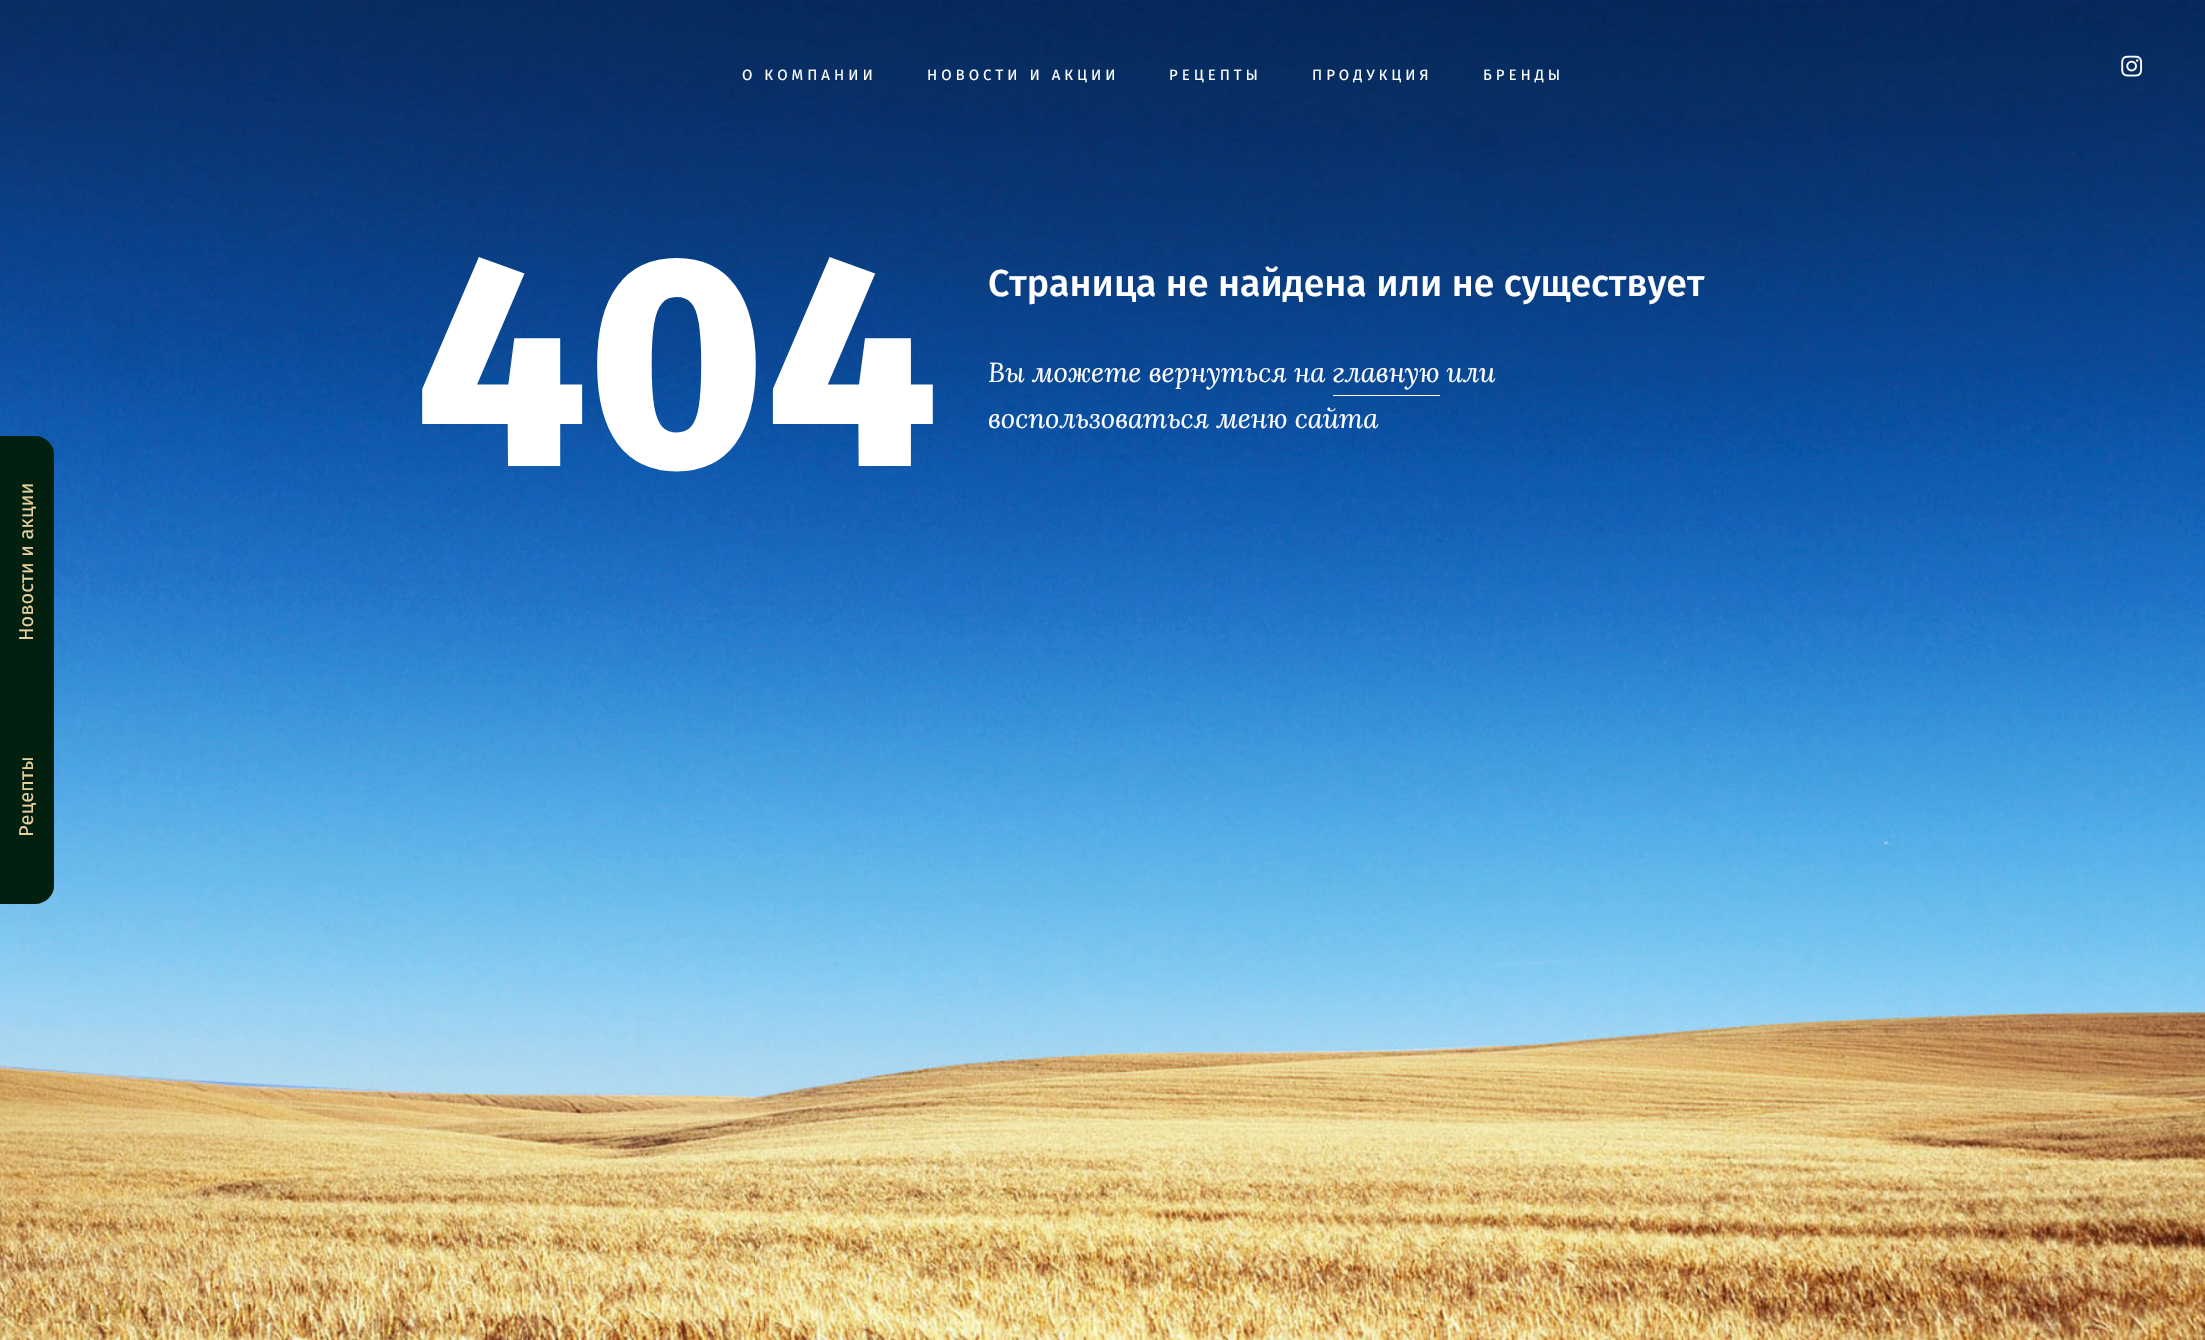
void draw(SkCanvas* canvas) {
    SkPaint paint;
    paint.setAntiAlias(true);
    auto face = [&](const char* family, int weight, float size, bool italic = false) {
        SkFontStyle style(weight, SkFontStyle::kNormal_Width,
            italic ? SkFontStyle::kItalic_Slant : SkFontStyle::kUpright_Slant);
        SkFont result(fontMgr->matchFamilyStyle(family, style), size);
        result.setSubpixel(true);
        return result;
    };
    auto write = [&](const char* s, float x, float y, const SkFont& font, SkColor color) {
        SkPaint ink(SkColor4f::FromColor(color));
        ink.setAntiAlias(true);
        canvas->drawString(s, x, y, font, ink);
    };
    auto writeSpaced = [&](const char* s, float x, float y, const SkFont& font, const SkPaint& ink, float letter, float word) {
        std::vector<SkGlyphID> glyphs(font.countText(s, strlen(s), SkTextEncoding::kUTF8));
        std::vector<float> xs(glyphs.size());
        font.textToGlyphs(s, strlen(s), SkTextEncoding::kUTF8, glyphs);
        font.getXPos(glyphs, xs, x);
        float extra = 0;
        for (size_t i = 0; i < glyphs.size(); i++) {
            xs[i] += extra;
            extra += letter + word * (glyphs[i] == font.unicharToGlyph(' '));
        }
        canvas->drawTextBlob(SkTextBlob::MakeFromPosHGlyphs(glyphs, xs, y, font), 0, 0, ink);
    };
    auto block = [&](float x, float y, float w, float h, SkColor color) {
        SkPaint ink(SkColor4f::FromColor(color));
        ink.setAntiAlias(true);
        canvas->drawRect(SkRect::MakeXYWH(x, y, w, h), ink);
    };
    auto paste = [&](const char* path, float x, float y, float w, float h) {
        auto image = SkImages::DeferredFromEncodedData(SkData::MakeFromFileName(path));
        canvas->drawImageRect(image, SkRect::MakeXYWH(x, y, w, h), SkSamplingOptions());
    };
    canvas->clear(SK_ColorWHITE);
    paste("pic1.png", 0, 0, 2205, 1340);
    auto kFont1 = face("Fira Sans", 400, 15);
    paint.setColor(SK_ColorWHITE);
    writeSpaced("О КОМПАНИИ", 742, 80, kFont1, paint, 4, 0);
    writeSpaced("НОВОСТИ И АКЦИИ", 927, 80, kFont1, paint, 4, 0);
    writeSpaced("РЕЦЕПТЫ", 1169, 80, kFont1, paint, 4, 0);
    writeSpaced("ПРОДУКЦИЯ", 1312, 80, kFont1, paint, 4, 0);
    writeSpaced("БРЕНДЫ", 1483, 80, kFont1, paint, 4, 0);
    paste("pic2.png", 2121, 55, 22, 22);
    auto kFont2 = face("Fira Sans", 800, 300);
    write("404", 415, 466, kFont2, SK_ColorWHITE);
    auto kFont3 = face("Fira Sans", 500, 37.5f);
    write("Cтраница не найдена или не существует", 988, 296, kFont3, SK_ColorWHITE);
    auto kFont4 = face("Lora", 400, 27.5f, true);
    write("Вы можете вернуться на главную или", 988, 382, kFont4, SK_ColorWHITE);
    block(1333, 395, 107, 1, SK_ColorWHITE);
    write("воспользоваться меню сайта", 988, 428, kFont4, SK_ColorWHITE);
    paint.setColor(SkColorSetRGB(1, 32, 16));
    canvas->drawPath(SkPathBuilder().moveTo(0, 904).lineTo(0, 436).lineTo(35, 436).cubicTo(45, 436, 54, 444, 54, 454).lineTo(54, 886).cubicTo(54, 896, 45, 904, 35, 904).close().detach(), paint);
    auto kFont5 = face("Fira Sans", 400, 20);
    canvas->save();
    canvas->rotate(-90, 33, 641);
    write("Новости и акции", 33, 641, kFont5, SkColorSetRGB(232, 207, 155));
    canvas->restore();
    canvas->save();
    canvas->rotate(-90, 33, 837);
    write("Рецепты", 33, 837, kFont5, SkColorSetRGB(232, 207, 155));
    canvas->restore();
}
